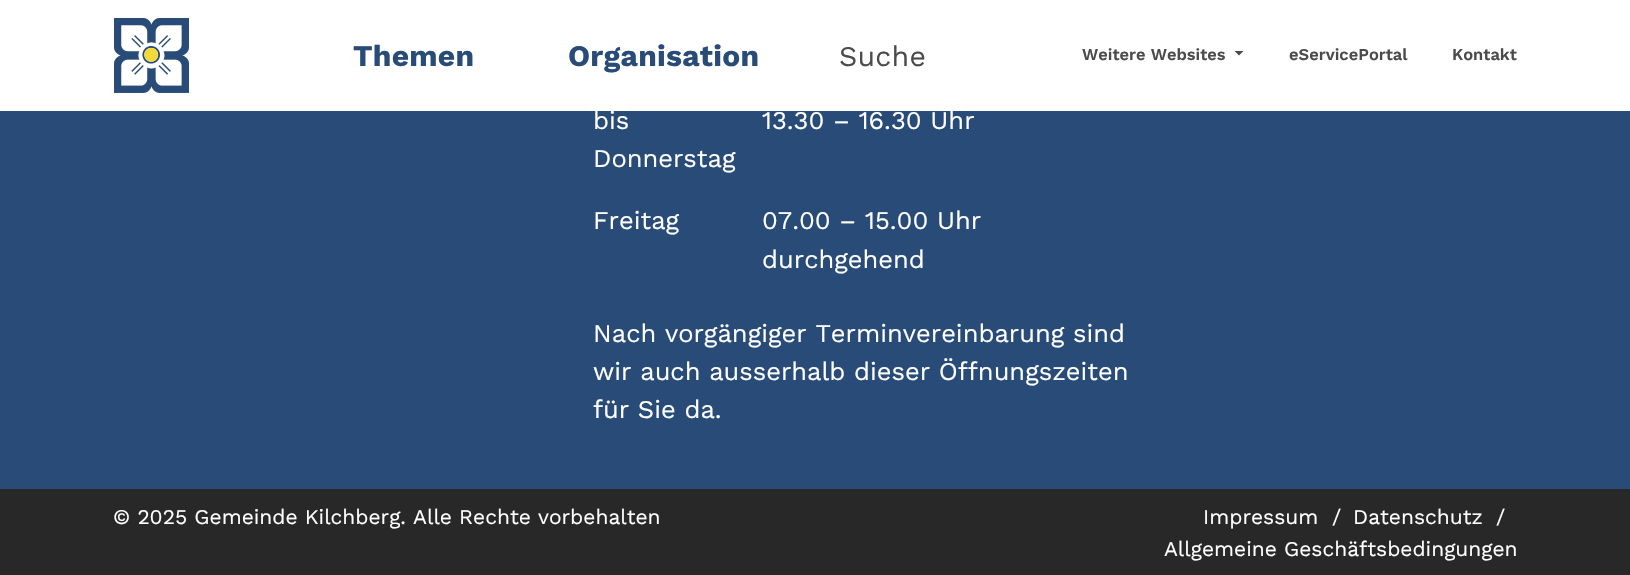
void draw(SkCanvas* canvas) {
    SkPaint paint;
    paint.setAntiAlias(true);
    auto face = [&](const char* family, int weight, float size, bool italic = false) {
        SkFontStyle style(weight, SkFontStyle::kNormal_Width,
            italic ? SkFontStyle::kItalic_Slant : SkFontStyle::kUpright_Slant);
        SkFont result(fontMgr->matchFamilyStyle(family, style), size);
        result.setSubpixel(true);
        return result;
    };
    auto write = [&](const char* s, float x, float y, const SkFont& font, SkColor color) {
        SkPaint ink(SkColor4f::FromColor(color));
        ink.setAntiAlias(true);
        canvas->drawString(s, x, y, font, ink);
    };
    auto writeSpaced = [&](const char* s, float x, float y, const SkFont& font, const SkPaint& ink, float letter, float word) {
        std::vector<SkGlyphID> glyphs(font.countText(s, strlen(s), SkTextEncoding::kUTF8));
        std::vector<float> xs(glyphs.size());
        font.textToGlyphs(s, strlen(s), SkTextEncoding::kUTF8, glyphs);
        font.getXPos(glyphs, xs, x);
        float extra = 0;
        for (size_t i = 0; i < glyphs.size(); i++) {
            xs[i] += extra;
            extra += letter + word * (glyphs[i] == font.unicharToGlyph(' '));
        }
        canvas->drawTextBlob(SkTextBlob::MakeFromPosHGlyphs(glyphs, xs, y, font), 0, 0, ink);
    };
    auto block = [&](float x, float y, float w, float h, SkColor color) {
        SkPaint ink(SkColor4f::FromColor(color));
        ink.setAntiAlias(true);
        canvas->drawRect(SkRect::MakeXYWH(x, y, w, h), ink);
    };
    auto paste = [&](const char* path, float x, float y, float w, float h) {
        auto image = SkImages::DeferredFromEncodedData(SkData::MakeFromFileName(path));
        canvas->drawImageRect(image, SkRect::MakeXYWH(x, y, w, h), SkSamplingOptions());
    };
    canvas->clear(SkColorSetRGB(40, 76, 119));
    block(0, 0, 1630, 111, SK_ColorWHITE);
    paste("pic1.png", 114, 18, 75, 75);
    auto kFont1 = face("Work Sans", 700, 30);
    paint.setColor(SkColorSetRGB(40, 76, 119));
    writeSpaced("Themen", 353, 66, kFont1, paint, 0.25f, 0);
    writeSpaced("Organisation", 568, 66, kFont1, paint, 0.25f, 0);
    auto kFont2 = face("Work Sans", 400, 28.5f);
    paint.setColor(SkColorSetRGB(75, 75, 75));
    writeSpaced("Suche", 839, 66, kFont2, paint, 0.25f, 0);
    auto kFont3 = face("Work Sans", 600, 16.5f);
    write("Weitere Websites", 1082, 60, kFont3, SkColorSetRGB(75, 75, 75));
    canvas->drawPath(SkPathBuilder().moveTo(1234.5f, 51).lineTo(1243.5f, 51).lineTo(1239, 55.5f).close().detach(), paint);
    write("eServicePortal", 1289, 60, kFont3, SkColorSetRGB(75, 75, 75));
    write("Kontakt", 1452, 60, kFont3, SkColorSetRGB(75, 75, 75));
    auto kFont4 = face("Work Sans", 400, 25.5f);
    write("bis", 593, 129, kFont4, SK_ColorWHITE);
    write("Donnerstag", 593, 167, kFont4, SK_ColorWHITE);
    write("13.30 – 16.30 Uhr", 762, 129, kFont4, SK_ColorWHITE);
    write("Freitag", 593, 229, kFont4, SK_ColorWHITE);
    write("07.00 – 15.00 Uhr", 762, 229, kFont4, SK_ColorWHITE);
    write("durchgehend", 762, 268, kFont4, SK_ColorWHITE);
    write("Nach vorgängiger Terminvereinbarung sind", 593, 342, kFont4, SK_ColorWHITE);
    write("wir auch ausserhalb dieser Öffnungszeiten", 593, 380, kFont4, SK_ColorWHITE);
    write("für Sie da.", 593, 418, kFont4, SK_ColorWHITE);
    block(0, 489, 1630, 86, SkColorSetRGB(40, 40, 40));
    auto kFont5 = face("Work Sans", 400, 21);
    write("© 2025 Gemeinde Kilchberg. Alle Rechte vorbehalten", 113, 524, kFont5, SK_ColorWHITE);
    write("Impressum", 1203, 524, kFont5, SK_ColorWHITE);
    write("/", 1332, 524, kFont5, SK_ColorWHITE);
    write("Datenschutz", 1353, 524, kFont5, SK_ColorWHITE);
    write("/", 1496, 524, kFont5, SK_ColorWHITE);
    write("Allgemeine Geschäftsbedingungen", 1164, 556, kFont5, SK_ColorWHITE);
}
